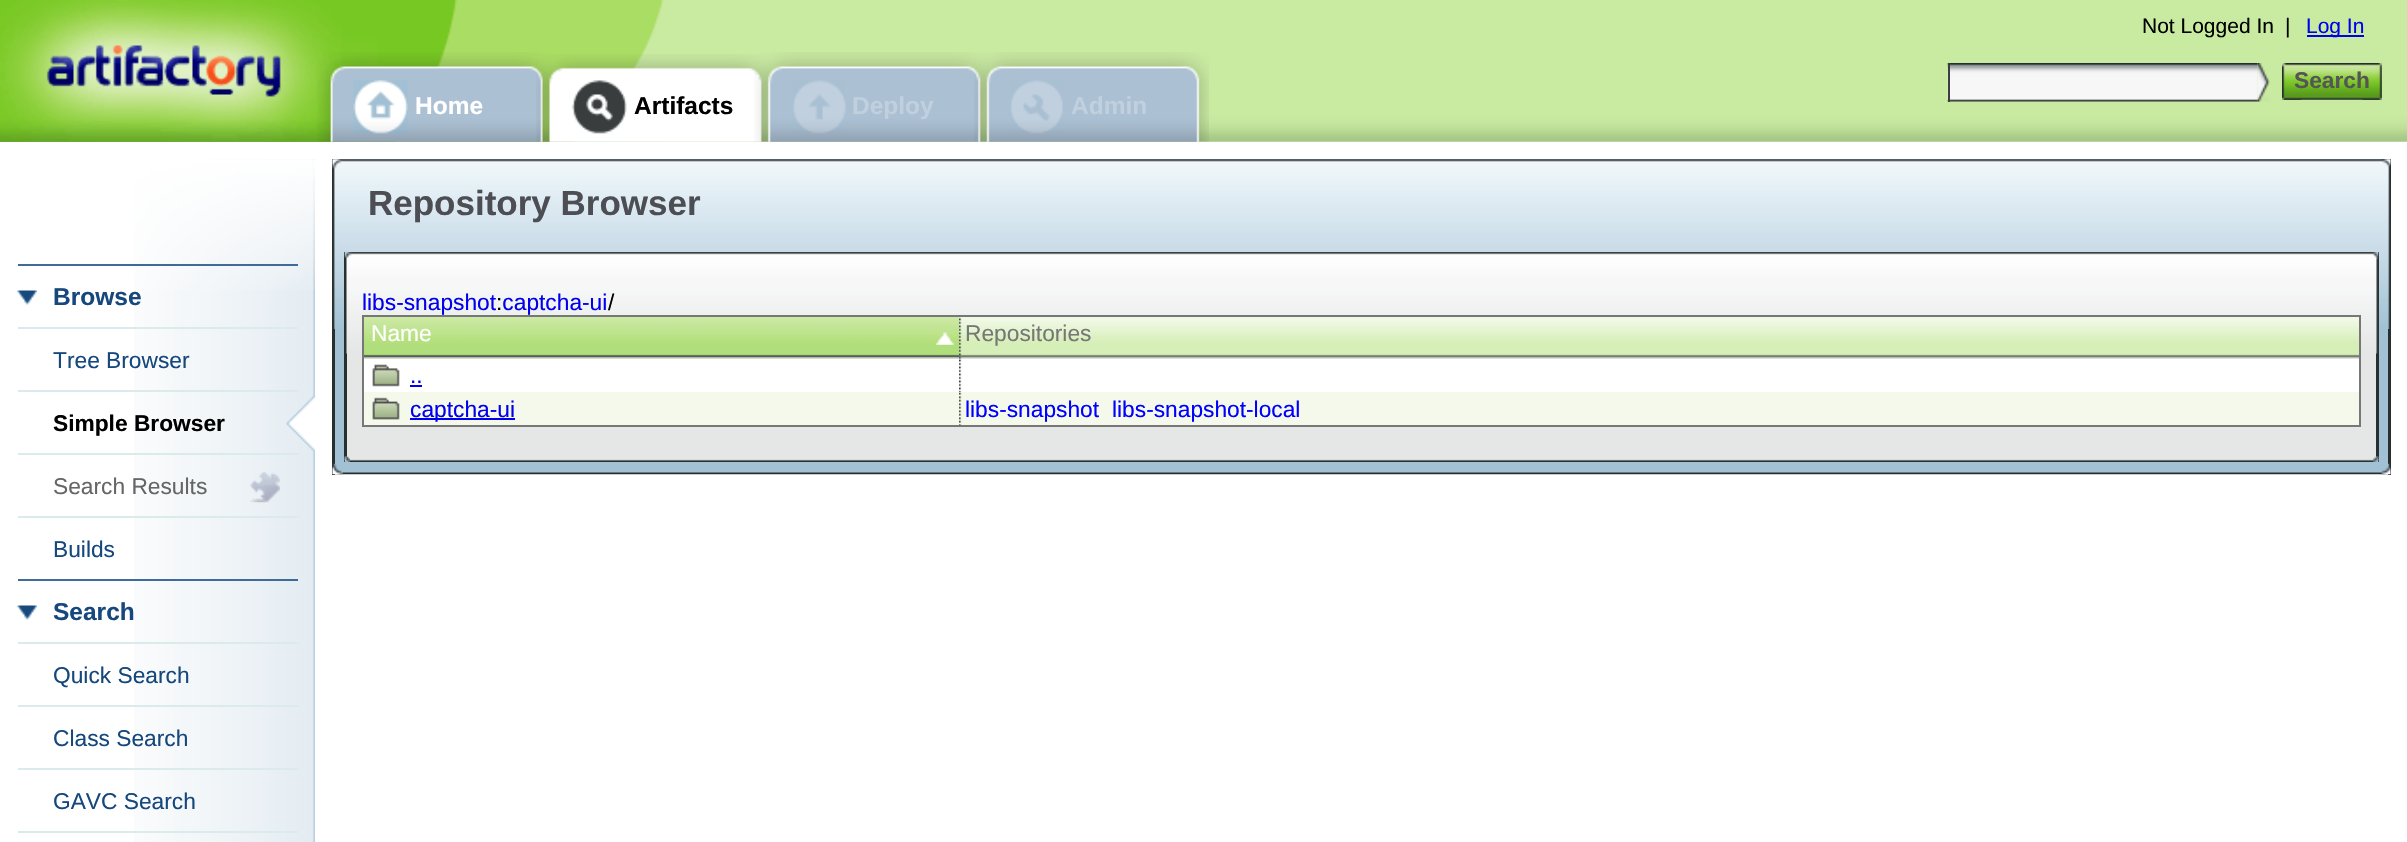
void draw(SkCanvas* canvas) {
    SkPaint paint;
    paint.setAntiAlias(true);
    auto face = [&](const char* family, int weight, float size, bool italic = false) {
        SkFontStyle style(weight, SkFontStyle::kNormal_Width,
            italic ? SkFontStyle::kItalic_Slant : SkFontStyle::kUpright_Slant);
        SkFont result(fontMgr->matchFamilyStyle(family, style), size);
        result.setSubpixel(true);
        return result;
    };
    auto write = [&](const char* s, float x, float y, const SkFont& font, SkColor color) {
        SkPaint ink(SkColor4f::FromColor(color));
        ink.setAntiAlias(true);
        canvas->drawString(s, x, y, font, ink);
    };
    auto block = [&](float x, float y, float w, float h, SkColor color) {
        SkPaint ink(SkColor4f::FromColor(color));
        ink.setAntiAlias(true);
        canvas->drawRect(SkRect::MakeXYWH(x, y, w, h), ink);
    };
    auto paste = [&](const char* path, float x, float y, float w, float h) {
        auto image = SkImages::DeferredFromEncodedData(SkData::MakeFromFileName(path));
        canvas->drawImageRect(image, SkRect::MakeXYWH(x, y, w, h), SkSamplingOptions());
    };
    canvas->clear(SK_ColorWHITE);
    paste("pic1.png", 0, 0, 2407, 142);
    paste("pic2.png", 0, 0, 664, 142);
    paste("pic3.png", 0, 0, 342, 142);
    auto kFont1 = face("Liberation Sans", 400, 21);
    write("Not Logged In", 2142, 33, kFont1, SK_ColorBLACK);
    write("|", 2285, 33, kFont1, SK_ColorBLACK);
    block(2307, 35, 57, 2, SkColorSetRGB(0, 0, 238));
    write("Log In", 2306, 33, kFont1, SkColorSetRGB(0, 0, 238));
    paste("pic4.png", 2257, 63, 13, 39);
    paste("pic5.png", 1947, 63, 311, 39);
    block(1948, 63, 2, 39, SkColorSetRGB(58, 62, 67));
    paste("pic6.png", 2282, 63, 100, 37);
    paste("pic7.png", 2282, 63, 20, 37);
    paste("pic8.png", 2362, 63, 20, 37);
    auto kFont2 = face("Liberation Sans", 700, 22.75f);
    write("Search", 2294, 88, kFont2, SkColorSetRGB(85, 85, 85));
    paste("pic9.png", 317, 52, 236, 90);
    paste("pic10.png", 353, 80, 55, 54);
    auto kFont3 = face("Liberation Sans", 700, 24.5f);
    write("Home", 415, 114, kFont3, SK_ColorWHITE);
    paste("pic11.png", 536, 54, 236, 88);
    paste("pic12.png", 572, 80, 55, 54);
    write("Artifacts", 634, 114, kFont3, SK_ColorBLACK);
    paste("pic13.png", 754, 52, 236, 90);
    paste("pic14.png", 793, 80, 53, 54);
    write("Deploy", 852, 114, kFont3, SkColorSetRGB(192, 208, 222));
    paste("pic15.png", 974, 52, 235, 90);
    paste("pic16.png", 1010, 80, 53, 54);
    write("Admin", 1071, 114, kFont3, SkColorSetRGB(192, 208, 222));
    paste("pic17.png", 134, 159, 181, 683);
    paste("pic18.png", 134, 159, 181, 131);
    paste("pic19.png", 17, 290, 20, 15);
    block(18, 264, 280, 2, SkColorSetRGB(63, 107, 152));
    write("Browse", 53, 305, kFont3, SkColorSetRGB(22, 72, 125));
    block(18, 327, 280, 2, SkColorSetRGB(219, 235, 235));
    auto kFont4 = face("Liberation Sans", 400, 22.75f);
    write("Tree Browser", 53, 368, kFont4, SkColorSetRGB(22, 72, 125));
    block(18, 390, 280, 2, SkColorSetRGB(219, 235, 235));
    paste("pic20.png", 286, 395, 29, 57);
    write("Simple Browser", 53, 431, kFont2, SK_ColorBLACK);
    block(18, 453, 280, 2, SkColorSetRGB(219, 235, 235));
    write("Search Results", 53, 494, kFont4, SkColorSetRGB(102, 102, 102));
    paste("pic21.png", 250, 472, 30, 31);
    block(18, 516, 280, 2, SkColorSetRGB(219, 235, 235));
    write("Builds", 53, 557, kFont4, SkColorSetRGB(22, 72, 125));
    paste("pic19.png", 17, 605, 20, 15);
    block(18, 579, 280, 2, SkColorSetRGB(63, 107, 152));
    write("Search", 53, 620, kFont3, SkColorSetRGB(22, 72, 125));
    block(18, 642, 280, 2, SkColorSetRGB(219, 235, 235));
    write("Quick Search", 53, 683, kFont4, SkColorSetRGB(22, 72, 125));
    block(18, 705, 280, 2, SkColorSetRGB(219, 235, 235));
    write("Class Search", 53, 746, kFont4, SkColorSetRGB(22, 72, 125));
    block(18, 768, 280, 2, SkColorSetRGB(219, 235, 235));
    write("GAVC Search", 53, 809, kFont4, SkColorSetRGB(22, 72, 125));
    block(18, 831, 280, 2, SkColorSetRGB(219, 235, 235));
    block(335, 159, 2053, 305, SkColorSetRGB(163, 193, 212));
    paste("pic22.png", 335, 159, 2053, 170);
    paste("pic23.png", 335, 463, 2053, 12);
    block(332, 159, 3, 316, SkColorSetRGB(40, 47, 47));
    block(2388, 159, 3, 316, SkColorSetRGB(40, 47, 47));
    paste("pic24.png", 332, 159, 10, 170);
    paste("pic25.png", 2381, 159, 10, 170);
    paste("pic26.png", 332, 463, 11, 12);
    paste("pic27.png", 2381, 463, 10, 12);
    auto kFont5 = face("Liberation Sans", 700, 35);
    write("Repository Browser", 368, 215, kFont5, SkColorSetRGB(76, 78, 83));
    block(347, 353, 2029, 104, SkColorSetRGB(229, 231, 231));
    paste("pic28.png", 347, 252, 2029, 102);
    block(344, 252, 3, 210, SkColorSetRGB(40, 47, 47));
    block(2376, 252, 3, 210, SkColorSetRGB(40, 47, 47));
    paste("pic29.png", 344, 252, 8, 102);
    paste("pic30.png", 2373, 252, 6, 102);
    paste("pic31.png", 344, 456, 2035, 6);
    paste("pic32.png", 344, 456, 6, 6);
    paste("pic33.png", 2373, 456, 6, 6);
    write("libs-snapshot captcha-ui", 362, 310, kFont4, SkColorSetRGB(0, 0, 238));
    write(":", 496, 310, kFont4, SK_ColorBLACK);
    write("/", 608, 310, kFont4, SK_ColorBLACK);
    block(362, 425, 1999, 2, SkColorSetRGB(119, 119, 119));
    paste("pic34.png", 364, 317, 595, 42);
    block(362, 315, 1999, 2, SkColorSetRGB(119, 119, 119));
    block(362, 315, 2, 110, SkColorSetRGB(119, 119, 119));
    paste("pic35.png", 936, 332, 18, 13);
    write("Name", 371, 341, kFont4, SK_ColorWHITE);
    paste("pic36.png", 959, 317, 1400, 42);
    block(2359, 315, 2, 110, SkColorSetRGB(119, 119, 119));
    paste("pic37.png", 959, 316, 3, 43);
    write("Repositories", 965, 341, kFont4, SkColorSetRGB(119, 119, 119));
    block(364, 359, 1995, 33, SK_ColorWHITE);
    paste("pic38.png", 372, 364, 28, 23);
    write("..", 410, 383, kFont4, SkColorSetRGB(0, 0, 238));
    block(410, 385, 12, 2, SkColorSetRGB(0, 0, 238));
    paste("pic39.png", 959, 359, 3, 33);
    block(364, 392, 1995, 33, SkColorSetRGB(245, 249, 235));
    paste("pic40.png", 372, 397, 28, 23);
    block(410, 418, 105, 2, SkColorSetRGB(0, 0, 238));
    write("captcha-ui", 410, 417, kFont4, SkColorSetRGB(0, 0, 238));
    paste("pic41.png", 959, 392, 3, 34);
    write("libs-snapshot", 965, 417, kFont4, SkColorSetRGB(0, 0, 255));
    write("libs-snapshot-local", 1112, 417, kFont4, SkColorSetRGB(0, 0, 255));
}
